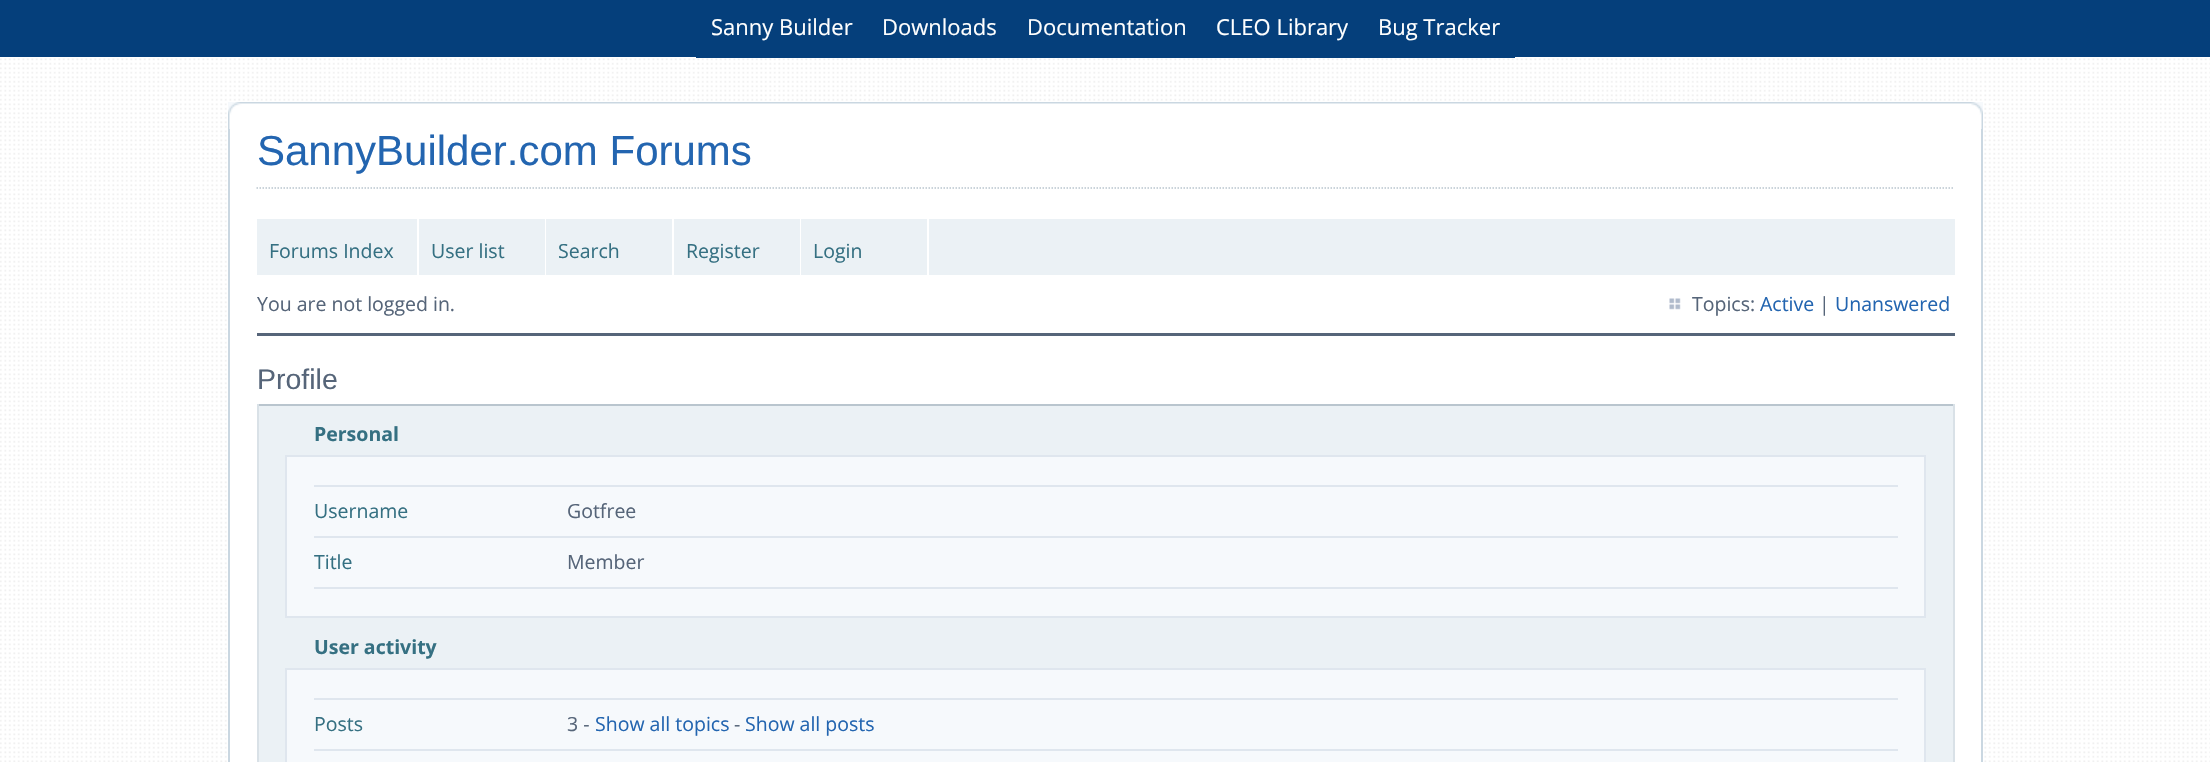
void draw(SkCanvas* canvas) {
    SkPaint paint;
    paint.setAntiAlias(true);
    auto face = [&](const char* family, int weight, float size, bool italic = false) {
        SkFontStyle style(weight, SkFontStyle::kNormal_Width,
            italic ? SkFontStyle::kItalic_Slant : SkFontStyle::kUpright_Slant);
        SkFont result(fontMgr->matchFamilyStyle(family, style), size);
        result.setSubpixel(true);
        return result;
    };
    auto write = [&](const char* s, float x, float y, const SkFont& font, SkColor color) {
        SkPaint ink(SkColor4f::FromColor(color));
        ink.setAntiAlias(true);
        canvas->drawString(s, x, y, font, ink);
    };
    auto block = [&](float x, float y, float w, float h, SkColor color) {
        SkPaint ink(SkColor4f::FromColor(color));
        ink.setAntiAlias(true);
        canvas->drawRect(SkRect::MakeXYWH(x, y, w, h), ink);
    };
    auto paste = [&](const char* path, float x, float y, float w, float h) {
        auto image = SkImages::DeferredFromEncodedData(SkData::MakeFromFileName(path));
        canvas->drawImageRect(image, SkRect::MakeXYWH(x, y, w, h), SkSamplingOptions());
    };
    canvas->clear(SK_ColorWHITE);
    paste("pic1.png", 0, 57, 2210, 705);
    block(0, 0, 2210, 57, SkColorSetRGB(5, 63, 123));
    block(696, 57, 819, 1, SkColorSetRGB(5, 63, 123));
    auto kFont1 = face("Open Sans", 400, 22);
    write("Sanny Builder", 711, 35, kFont1, SK_ColorWHITE);
    write("Downloads", 882, 35, kFont1, SK_ColorWHITE);
    write("Documentation", 1027, 35, kFont1, SK_ColorWHITE);
    write("CLEO Library", 1216, 35, kFont1, SK_ColorWHITE);
    write("Bug Tracker", 1378, 35, kFont1, SK_ColorWHITE);
    block(230, 130, 1751, 632, SK_ColorWHITE);
    paint.setStyle(SkPaint::kStroke_Style);
    paint.setStrokeWidth(2);
    paint.setColor(SkColorSetRGB(202, 215, 225));
    canvas->drawRect(SkRect::MakeXYWH(229, 103, 1753, 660), paint);
    paste("pic2.png", 228, 102, 1743, 27);
    paste("pic3.png", 1971, 102, 12, 27);
    auto kFont2 = face("Liberation Sans", 400, 42);
    write("SannyBuilder.com Forums", 257, 165, kFont2, SkColorSetRGB(35, 101, 176));
    paint.setStrokeWidth(1.5f);
    paint.setColor(SkColorSetRGB(185, 197, 206));
    paint.setPathEffect(SkDashPathEffect::Make({{1.5f, 1.5f}}, 0));
    canvas->drawPath(SkPathBuilder().moveTo(256.5f, 188).lineTo(1954.5f, 188).detach(), paint);
    paint.setPathEffect(nullptr);
    block(257, 219, 1698, 56, SkColorSetRGB(235, 241, 245));
    block(417, 219, 2, 56, SK_ColorWHITE);
    auto kFont3 = face("Open Sans", 400, 19.5f);
    write("Forums Index", 269, 258, kFont3, SkColorSetRGB(53, 112, 130));
    block(545, 219, 1, 56, SK_ColorWHITE);
    write("User list", 431, 258, kFont3, SkColorSetRGB(53, 112, 130));
    block(672, 219, 2, 56, SK_ColorWHITE);
    write("Search", 558, 258, kFont3, SkColorSetRGB(53, 112, 130));
    block(800, 219, 1, 56, SK_ColorWHITE);
    write("Register", 686, 258, kFont3, SkColorSetRGB(53, 112, 130));
    block(927, 219, 2, 56, SK_ColorWHITE);
    write("Login", 813, 258, kFont3, SkColorSetRGB(53, 112, 130));
    write("You are not logged in.", 257, 311, kFont3, SkColorSetRGB(86, 101, 121));
    paste("pic4.png", 1669, 298, 12, 12);
    write("Topics:", 1692, 311, kFont3, SkColorSetRGB(86, 101, 121));
    write("Active", 1760, 311, kFont3, SkColorSetRGB(35, 101, 176));
    write("|", 1819, 311, kFont3, SkColorSetRGB(86, 101, 121));
    write("Unanswered", 1835, 311, kFont3, SkColorSetRGB(35, 101, 176));
    block(257, 333, 1698, 3, SkColorSetRGB(86, 101, 121));
    auto kFont4 = face("Liberation Sans", 400, 28.5f);
    write("Profile", 257, 389, kFont4, SkColorSetRGB(86, 101, 121));
    block(259, 406, 1694, 356, SkColorSetRGB(235, 241, 245));
    block(257, 404, 1698, 2, SkColorSetRGB(185, 197, 206));
    block(1953, 404, 2, 358, SkColorSetRGB(217, 225, 231));
    block(257, 404, 2, 358, SkColorSetRGB(217, 225, 231));
    auto kFont5 = face("Open Sans", 700, 19.5f);
    write("Personal", 314, 441, kFont5, SkColorSetRGB(53, 112, 130));
    paint.setStyle(SkPaint::kFill_Style);
    paint.setColor(SkColorSetRGB(246, 249, 252));
    canvas->drawRect(SkRect::MakeXYWH(286, 456, 1639, 161), paint);
    paint.setStyle(SkPaint::kStroke_Style);
    paint.setStrokeWidth(2);
    paint.setColor(SkColorSetRGB(223, 230, 238));
    canvas->drawRect(SkRect::MakeXYWH(286, 456, 1639, 161), paint);
    block(314, 485, 1584, 2, SkColorSetRGB(223, 230, 238));
    write("Username", 314, 518, kFont3, SkColorSetRGB(53, 112, 130));
    block(314, 536, 1584, 2, SkColorSetRGB(223, 230, 238));
    write("Gotfree", 567, 518, kFont3, SkColorSetRGB(86, 101, 121));
    write("Title", 314, 569, kFont3, SkColorSetRGB(53, 112, 130));
    block(314, 587, 1584, 2, SkColorSetRGB(223, 230, 238));
    write("Member", 567, 569, kFont3, SkColorSetRGB(86, 101, 121));
    write("User activity", 314, 654, kFont5, SkColorSetRGB(53, 112, 130));
    paint.setStyle(SkPaint::kFill_Style);
    paint.setColor(SkColorSetRGB(246, 249, 252));
    canvas->drawRect(SkRect::MakeXYWH(286, 669, 1639, 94), paint);
    paint.setStyle(SkPaint::kStroke_Style);
    paint.setColor(SkColorSetRGB(223, 230, 238));
    canvas->drawRect(SkRect::MakeXYWH(286, 669, 1639, 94), paint);
    block(314, 698, 1584, 2, SkColorSetRGB(223, 230, 238));
    write("Posts", 314, 731, kFont3, SkColorSetRGB(53, 112, 130));
    block(314, 749, 1584, 2, SkColorSetRGB(223, 230, 238));
    write("3 -", 567, 731, kFont3, SkColorSetRGB(86, 101, 121));
    write("Show all topics", 595, 731, kFont3, SkColorSetRGB(35, 101, 176));
    write("-", 734, 731, kFont3, SkColorSetRGB(86, 101, 121));
    write("Show all posts", 745, 731, kFont3, SkColorSetRGB(35, 101, 176));
}
